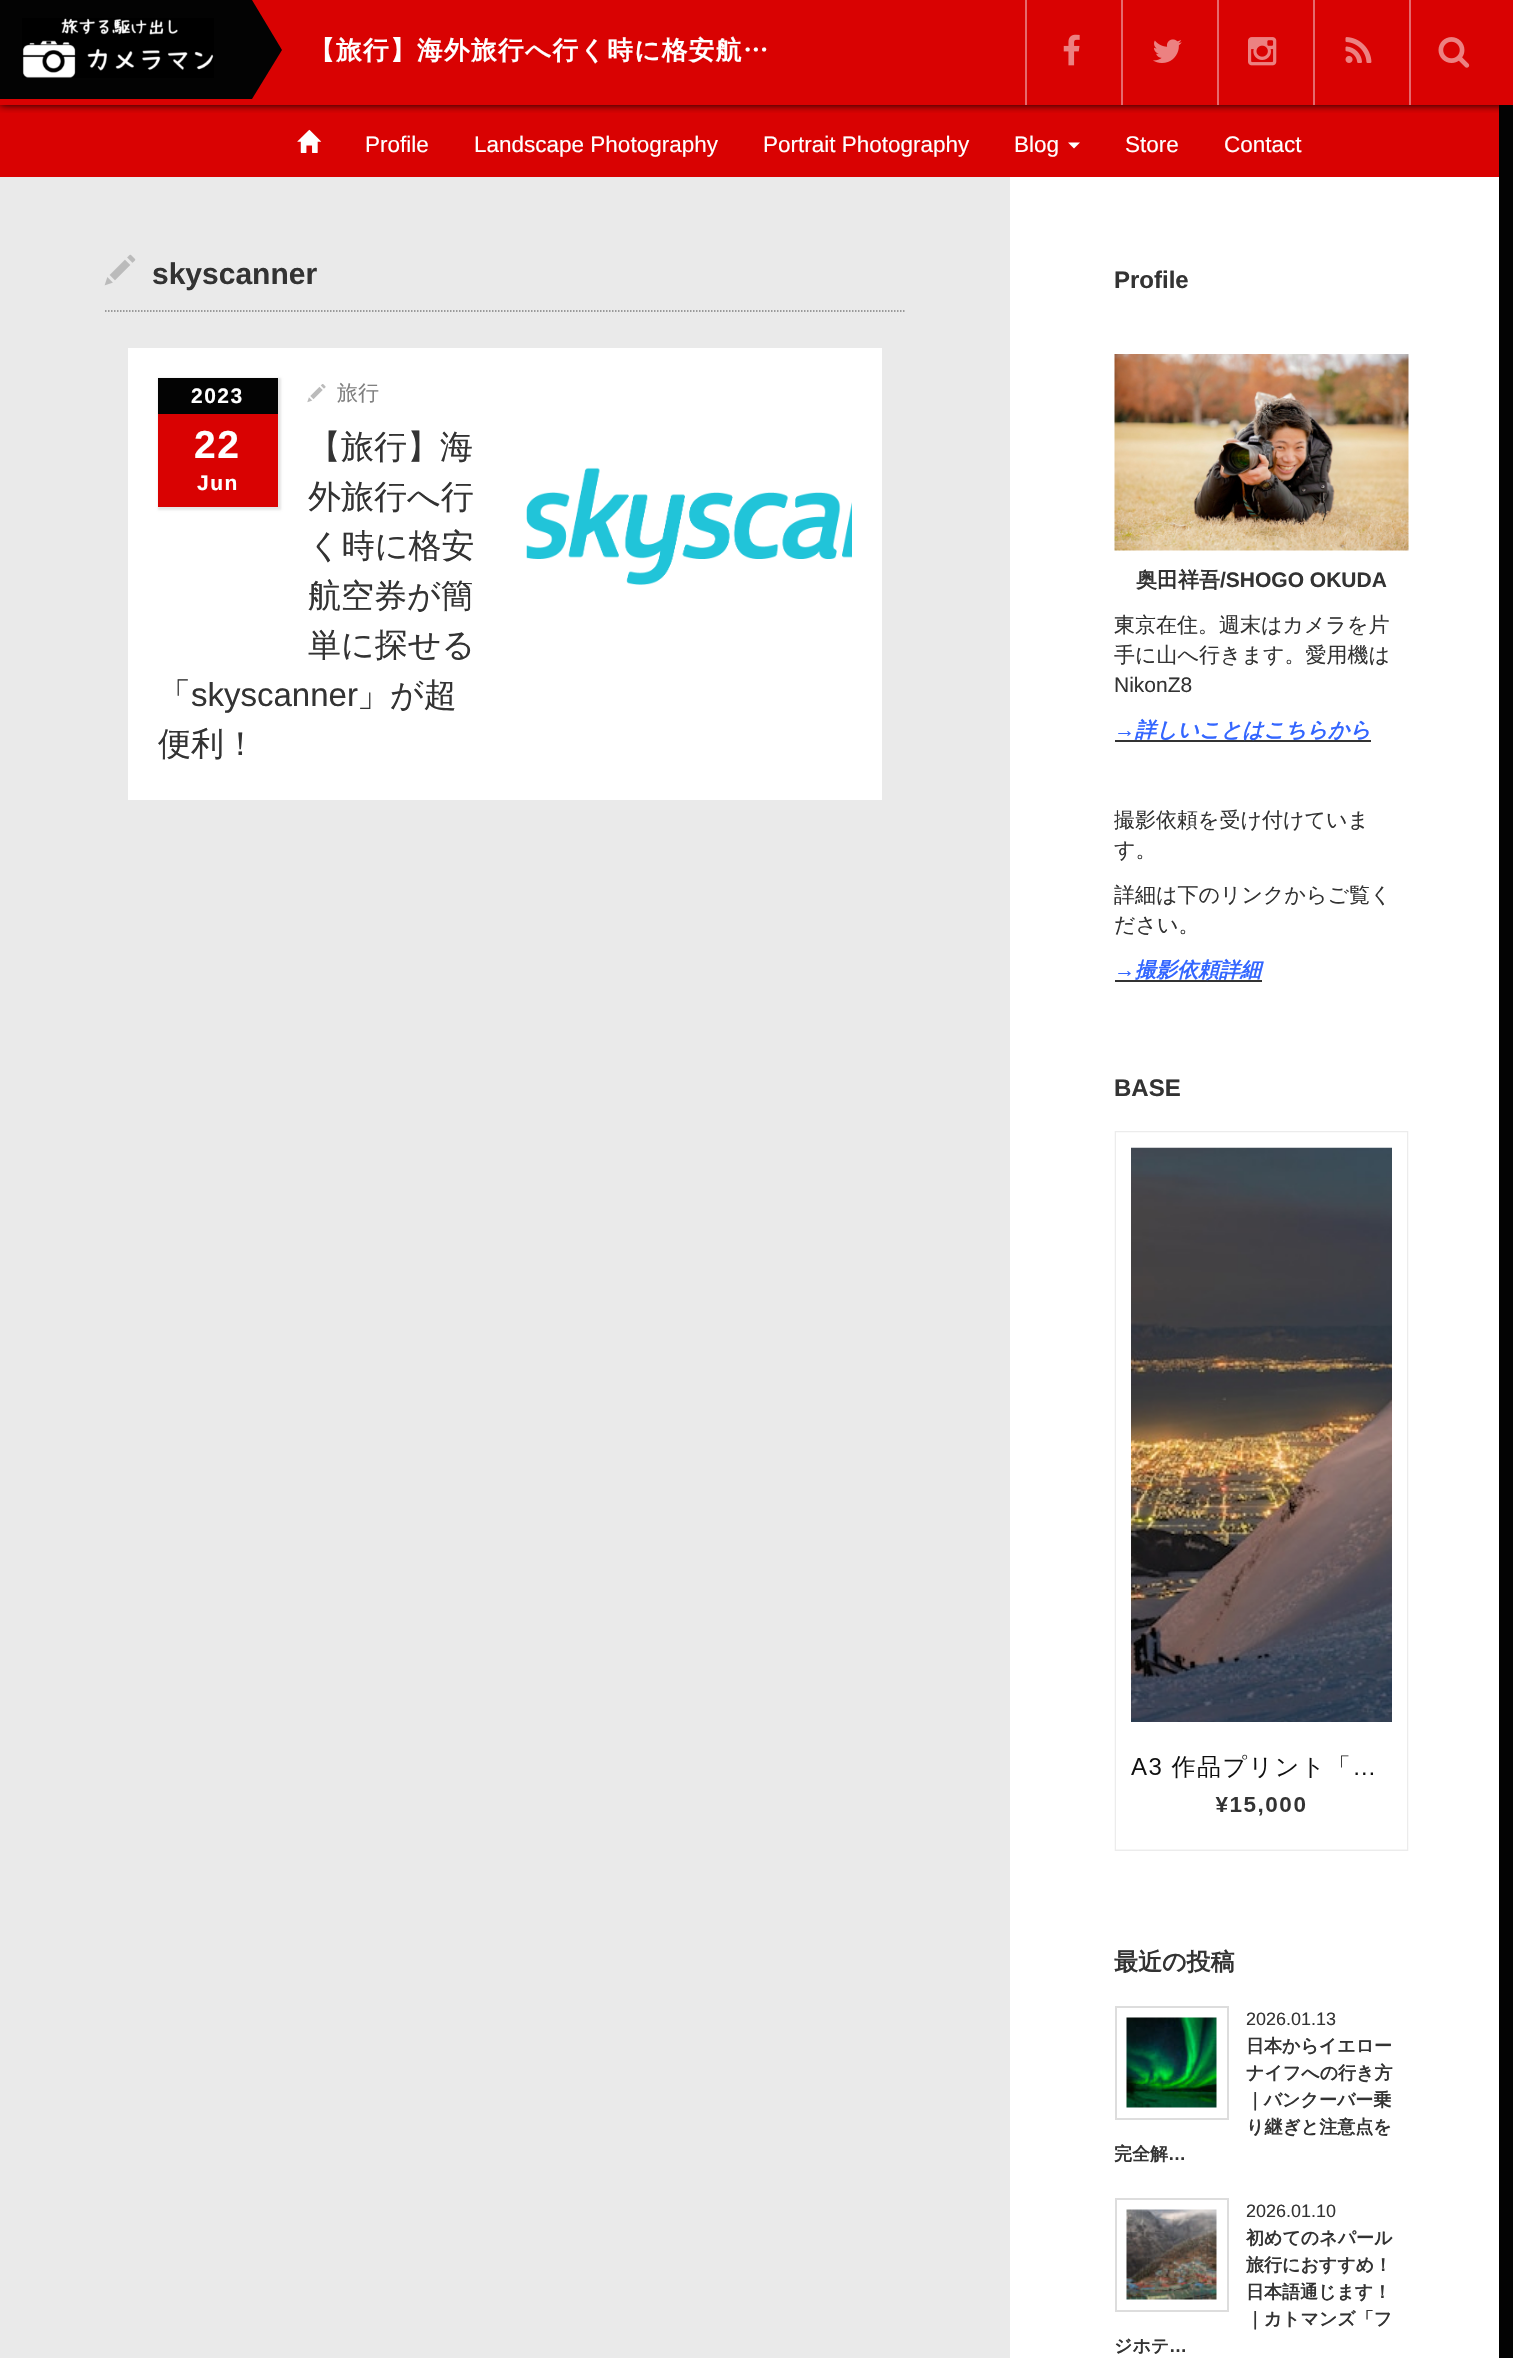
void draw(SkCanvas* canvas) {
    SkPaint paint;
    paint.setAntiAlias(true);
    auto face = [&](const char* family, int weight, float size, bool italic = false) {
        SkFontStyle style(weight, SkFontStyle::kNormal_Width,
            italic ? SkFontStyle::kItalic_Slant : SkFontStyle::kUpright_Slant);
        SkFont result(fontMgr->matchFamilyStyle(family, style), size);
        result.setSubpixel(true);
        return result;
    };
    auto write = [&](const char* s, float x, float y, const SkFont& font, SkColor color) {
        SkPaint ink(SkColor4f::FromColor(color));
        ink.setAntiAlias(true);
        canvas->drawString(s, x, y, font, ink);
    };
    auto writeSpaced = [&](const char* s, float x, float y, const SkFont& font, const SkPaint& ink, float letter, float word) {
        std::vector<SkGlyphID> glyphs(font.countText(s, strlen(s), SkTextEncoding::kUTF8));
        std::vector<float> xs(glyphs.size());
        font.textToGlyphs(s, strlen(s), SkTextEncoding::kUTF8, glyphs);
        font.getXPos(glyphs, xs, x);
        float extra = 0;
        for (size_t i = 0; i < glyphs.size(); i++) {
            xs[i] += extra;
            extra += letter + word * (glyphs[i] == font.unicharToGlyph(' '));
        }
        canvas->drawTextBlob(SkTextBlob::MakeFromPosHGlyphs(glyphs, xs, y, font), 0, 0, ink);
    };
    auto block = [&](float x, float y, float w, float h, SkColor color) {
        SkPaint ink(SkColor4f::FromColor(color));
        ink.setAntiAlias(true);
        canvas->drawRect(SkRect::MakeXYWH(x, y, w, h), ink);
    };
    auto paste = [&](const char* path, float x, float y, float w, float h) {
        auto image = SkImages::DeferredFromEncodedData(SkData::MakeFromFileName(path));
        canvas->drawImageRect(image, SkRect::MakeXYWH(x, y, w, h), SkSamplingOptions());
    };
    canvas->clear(SkColorSetRGB(234, 234, 234));
    block(0, 0, 1499, 177, SkColorSetRGB(217, 2, 2));
    canvas->save();
    canvas->clipRect(SkRect::MakeXYWH(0, 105, 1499, 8));
    paint.setColor(SK_ColorBLACK);
    paint.setMaskFilter(SkMaskFilter::MakeBlur(kNormal_SkBlurStyle, 4));
    canvas->drawRect(SkRect::MakeXYWH(0, 0, 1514, 105), paint);
    paint.setMaskFilter(nullptr);
    canvas->restore();
    block(0, 0, 252, 99, SkColorSetRGB(3, 3, 3));
    paste("pic1.png", 22, 18, 192, 60);
    paint.setColor(SkColorSetRGB(3, 3, 3));
    canvas->drawPath(SkPathBuilder().moveTo(252, 99).lineTo(252, 0).lineTo(282, 50).close().detach(), paint);
    auto kFont1 = face("WenQuanYi Zen Hei", 700, 25.5f);
    paint.setColor(SK_ColorWHITE);
    writeSpaced("【旅行】海外旅行へ行く時に格安航…", 309, 59, kFont1, paint, 1.5f, 0);
    block(1025, 0, 2, 105, SkColorSetRGB(229, 106, 109));
    paste("pic2.png", 1063, 34, 17, 32);
    block(1121, 0, 2, 105, SkColorSetRGB(229, 106, 109));
    paste("pic3.png", 1153, 39, 29, 24);
    block(1217, 0, 2, 105, SkColorSetRGB(229, 106, 109));
    paste("pic4.png", 1248, 37, 29, 29);
    block(1313, 0, 2, 105, SkColorSetRGB(229, 106, 109));
    paste("pic5.png", 1345, 37, 27, 26);
    block(1409, 0, 2, 105, SkColorSetRGB(229, 106, 109));
    paste("pic6.png", 1438, 37, 32, 31);
    paste("pic7.png", 297, 129, 25, 24);
    auto kFont2 = face("Liberation Sans", 400, 22.5f);
    write("Profile", 365, 152, kFont2, SK_ColorWHITE);
    write("Landscape Photography", 474, 152, kFont2, SK_ColorWHITE);
    write("Portrait Photography", 763, 152, kFont2, SK_ColorWHITE);
    write("Blog", 1014, 152, kFont2, SK_ColorWHITE);
    canvas->drawPath(SkPathBuilder().moveTo(1068, 142.5f).lineTo(1080, 142.5f).lineTo(1074, 148.5f).close().detach(), paint);
    write("Store", 1125, 152, kFont2, SK_ColorWHITE);
    write("Contact", 1224, 152, kFont2, SK_ColorWHITE);
    paint.setStyle(SkPaint::kStroke_Style);
    paint.setStrokeWidth(1.5f);
    paint.setColor(SkColorSetRGB(128, 128, 128));
    paint.setPathEffect(SkDashPathEffect::Make({{1.5f, 1.5f}}, 0));
    canvas->drawPath(SkPathBuilder().moveTo(105, 311).lineTo(904.5f, 311).detach(), paint);
    paint.setPathEffect(nullptr);
    paste("pic8.png", 104, 254, 32, 32);
    auto kFont3 = face("Liberation Sans", 700, 30);
    write("skyscanner", 152, 284, kFont3, SkColorSetRGB(51, 51, 51));
    block(128, 348, 754, 452, SK_ColorWHITE);
    paint.setStyle(SkPaint::kFill_Style);
    paint.setColor(SkColorSetARGB(26, 0, 0, 0));
    paint.setMaskFilter(SkMaskFilter::MakeBlur(kNormal_SkBlurStyle, 1));
    canvas->drawRect(SkRect::MakeXYWH(158, 378, 123, 132), paint);
    paint.setMaskFilter(nullptr);
    block(158, 414, 120, 93, SkColorSetRGB(217, 2, 2));
    block(158, 378, 120, 36, SkColorSetRGB(3, 3, 3));
    auto kFont4 = face("Liberation Sans", 700, 21);
    paint.setColor(SK_ColorWHITE);
    writeSpaced("2023", 191, 403, kFont4, paint, 1.5f, 0);
    auto kFont5 = face("Liberation Sans", 700, 39);
    writeSpaced("22", 194, 458, kFont5, paint, 1.5f, 0);
    writeSpaced("Jun", 197, 490, kFont4, paint, 1.5f, 0);
    paste("pic9.png", 307, 384, 19, 19);
    auto kFont6 = face("WenQuanYi Zen Hei", 500, 21);
    write("旅行", 337, 400, kFont6, SkColorSetRGB(128, 128, 128));
    auto kFont7 = face("WenQuanYi Zen Hei", 500, 33);
    write("【旅行】海", 308, 458, kFont7, SkColorSetRGB(51, 51, 51));
    write("外旅行へ行", 308, 508, kFont7, SkColorSetRGB(51, 51, 51));
    write("く時に格安", 308, 557, kFont7, SkColorSetRGB(51, 51, 51));
    write("航空券が簡", 308, 607, kFont7, SkColorSetRGB(51, 51, 51));
    write("単に探せる", 308, 656, kFont7, SkColorSetRGB(51, 51, 51));
    write("「", 158, 706, kFont7, SkColorSetRGB(51, 51, 51));
    auto kFont8 = face("Liberation Sans", 400, 33);
    write("skyscanner", 191, 706, kFont8, SkColorSetRGB(51, 51, 51));
    write("」が超", 357, 706, kFont7, SkColorSetRGB(51, 51, 51));
    write("便利！", 158, 755, kFont7, SkColorSetRGB(51, 51, 51));
    paste("pic10.png", 526, 467, 326, 118);
    block(1010, 177, 489, 2181, SK_ColorWHITE);
    block(1499, 0, 14, 105, SkColorSetRGB(217, 2, 2));
    block(1499, 105, 14, 2253, SkColorSetRGB(3, 3, 3));
    auto kFont9 = face("Liberation Sans", 700, 24);
    write("Profile", 1114, 288, kFont9, SkColorSetRGB(51, 51, 51));
    paste("pic11.png", 1114, 354, 295, 197);
    auto kFont10 = face("WenQuanYi Zen Hei", 700, 21);
    write("奥田祥吾", 1136, 587, kFont10, SkColorSetRGB(51, 51, 51));
    write("/SHOGO OKUDA", 1220, 587, kFont4, SkColorSetRGB(51, 51, 51));
    write("東京在住。週末はカメラを片", 1114, 632, kFont6, SkColorSetRGB(51, 51, 51));
    write("手に山へ行きます。愛用機は", 1114, 662, kFont6, SkColorSetRGB(51, 51, 51));
    auto kFont11 = face("Liberation Sans", 400, 21);
    write("NikonZ8", 1114, 692, kFont11, SkColorSetRGB(51, 51, 51));
    auto kFont12 = face("Liberation Sans", 700, 21, true);
    write("→", 1114, 737, kFont12, SkColorSetRGB(51, 102, 255));
    block(1115, 740, 256, 2, SkColorSetRGB(51, 51, 51));
    auto kFont13 = face("WenQuanYi Zen Hei", 700, 21, true);
    write("詳しいことはこちらから", 1135, 737, kFont13, SkColorSetRGB(51, 102, 255));
    write("撮影依頼を受け付けていま", 1114, 827, kFont6, SkColorSetRGB(51, 51, 51));
    write("す。", 1114, 857, kFont6, SkColorSetRGB(51, 51, 51));
    write("詳細は下のリンクからご覧く", 1114, 902, kFont6, SkColorSetRGB(51, 51, 51));
    write("ださい。", 1114, 932, kFont6, SkColorSetRGB(51, 51, 51));
    write("→", 1114, 977, kFont12, SkColorSetRGB(51, 102, 255));
    block(1115, 980, 147, 2, SkColorSetRGB(50, 50, 50));
    write("撮影依頼詳細", 1135, 977, kFont13, SkColorSetRGB(51, 102, 255));
    write("BASE", 1114, 1096, kFont9, SkColorSetRGB(51, 51, 51));
    paste("pic12.png", 1114, 1131, 295, 720);
    auto kFont14 = face("WenQuanYi Zen Hei", 700, 24);
    write("最近の投稿", 1114, 1970, kFont14, SkColorSetRGB(51, 51, 51));
    paint.setStyle(SkPaint::kStroke_Style);
    paint.setStrokeWidth(2);
    paint.setColor(SkColorSetRGB(221, 221, 221));
    canvas->drawRect(SkRect::MakeXYWH(1116, 2007, 112, 112), paint);
    paste("pic13.png", 1126, 2017, 91, 91);
    auto kFont15 = face("Liberation Sans", 400, 18);
    write("2026.01.13", 1246, 2025, kFont15, SkColorSetRGB(51, 51, 51));
    auto kFont16 = face("WenQuanYi Zen Hei", 700, 18);
    write("日本からイエロー", 1246, 2052, kFont16, SkColorSetRGB(51, 51, 51));
    write("ナイフへの行き方", 1246, 2079, kFont16, SkColorSetRGB(51, 51, 51));
    write("｜バンクーバー乗", 1246, 2106, kFont16, SkColorSetRGB(51, 51, 51));
    write("り継ぎと注意点を", 1246, 2133, kFont16, SkColorSetRGB(51, 51, 51));
    write("完全解", 1114, 2160, kFont16, SkColorSetRGB(51, 51, 51));
    auto kFont17 = face("Liberation Sans", 700, 18);
    write("…", 1168, 2160, kFont17, SkColorSetRGB(51, 51, 51));
    canvas->drawRect(SkRect::MakeXYWH(1116, 2199, 112, 112), paint);
    paste("pic14.png", 1126, 2209, 91, 91);
    write("2026.01.10", 1246, 2217, kFont15, SkColorSetRGB(51, 51, 51));
    write("初めてのネパール", 1246, 2244, kFont16, SkColorSetRGB(51, 51, 51));
    write("旅行におすすめ！", 1246, 2271, kFont16, SkColorSetRGB(51, 51, 51));
    write("日本語通じます！", 1246, 2298, kFont16, SkColorSetRGB(51, 51, 51));
    write("｜カトマンズ「フ", 1246, 2325, kFont16, SkColorSetRGB(51, 51, 51));
    write("ジホテ", 1114, 2352, kFont16, SkColorSetRGB(51, 51, 51));
    write("…", 1169, 2352, kFont17, SkColorSetRGB(51, 51, 51));
}
